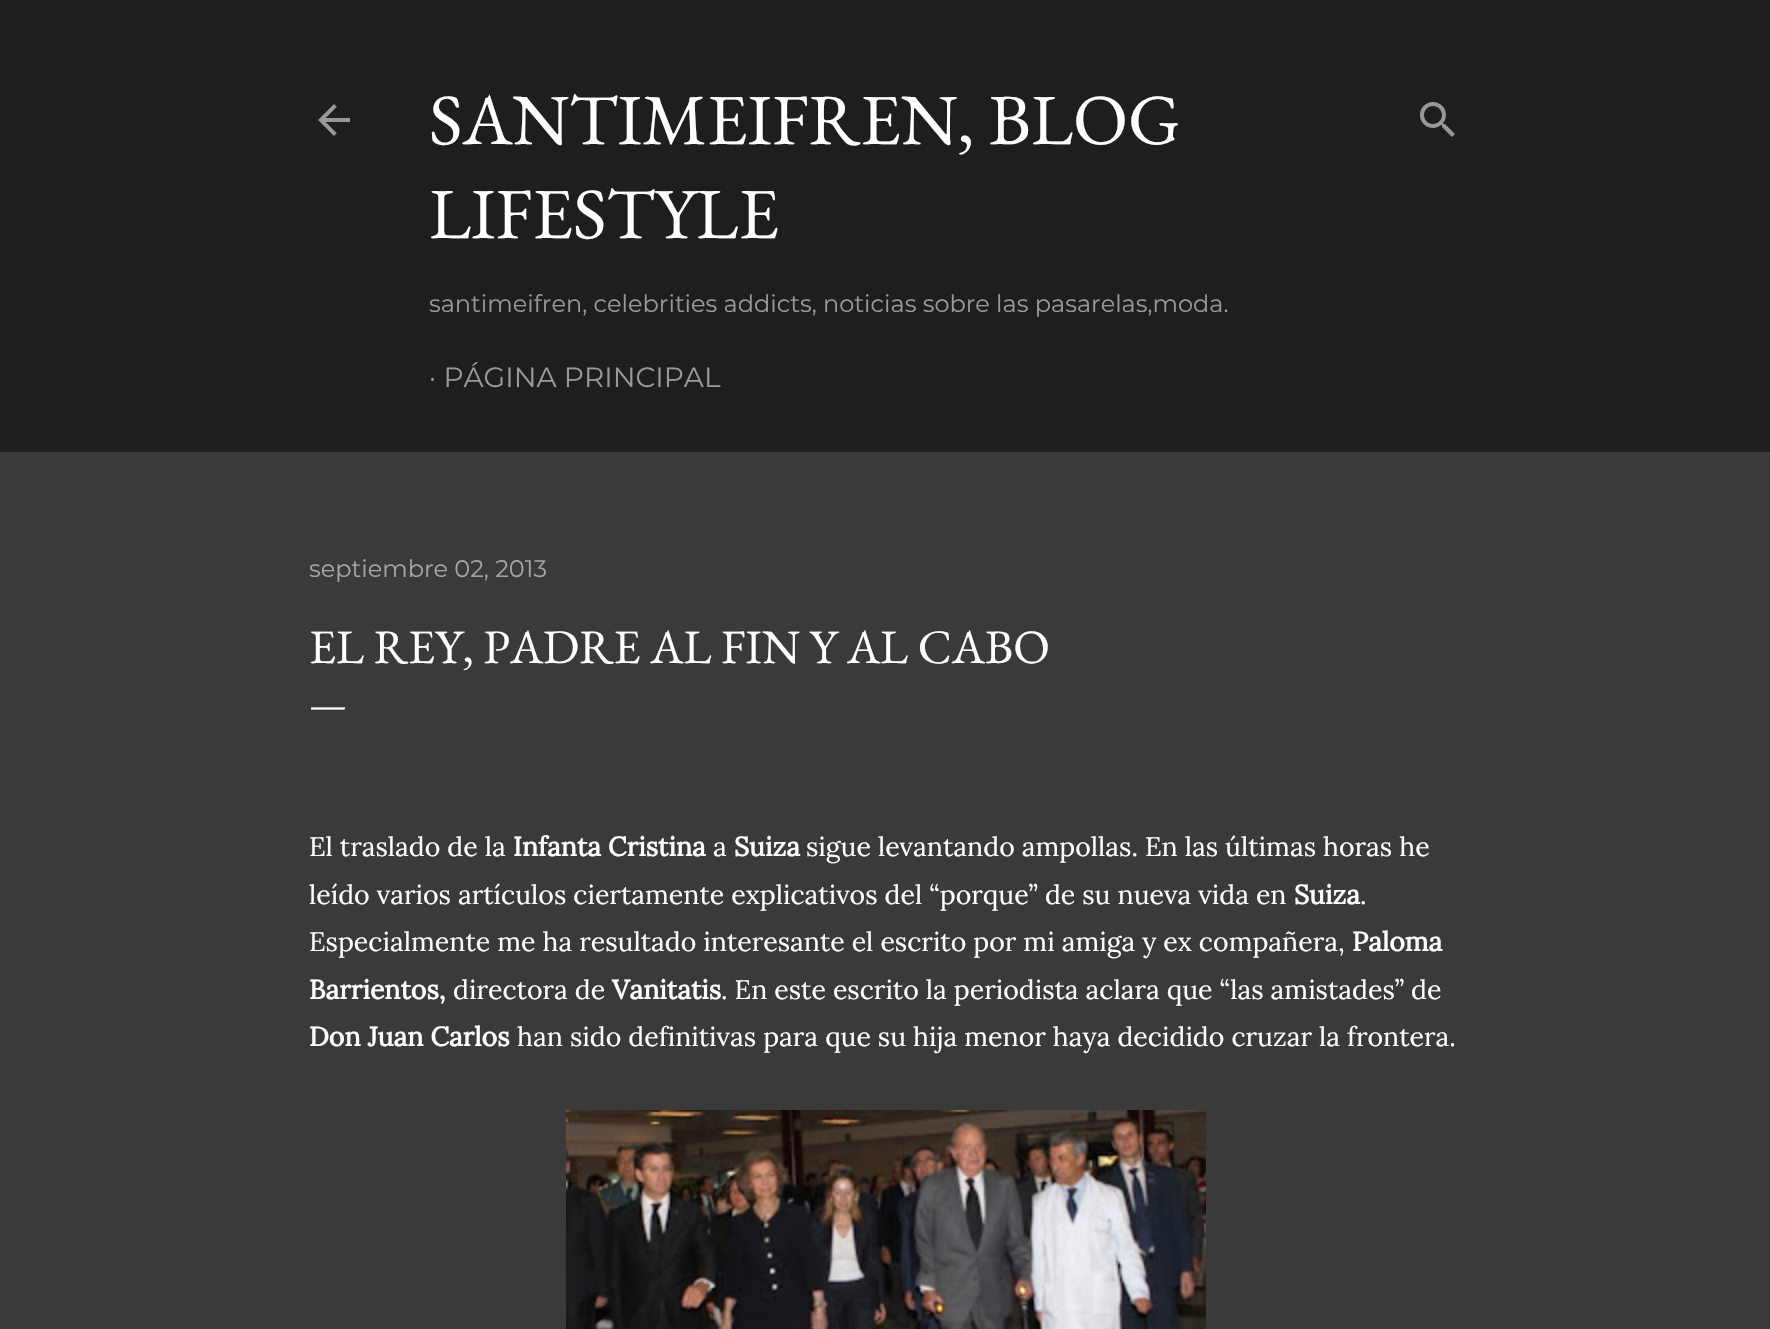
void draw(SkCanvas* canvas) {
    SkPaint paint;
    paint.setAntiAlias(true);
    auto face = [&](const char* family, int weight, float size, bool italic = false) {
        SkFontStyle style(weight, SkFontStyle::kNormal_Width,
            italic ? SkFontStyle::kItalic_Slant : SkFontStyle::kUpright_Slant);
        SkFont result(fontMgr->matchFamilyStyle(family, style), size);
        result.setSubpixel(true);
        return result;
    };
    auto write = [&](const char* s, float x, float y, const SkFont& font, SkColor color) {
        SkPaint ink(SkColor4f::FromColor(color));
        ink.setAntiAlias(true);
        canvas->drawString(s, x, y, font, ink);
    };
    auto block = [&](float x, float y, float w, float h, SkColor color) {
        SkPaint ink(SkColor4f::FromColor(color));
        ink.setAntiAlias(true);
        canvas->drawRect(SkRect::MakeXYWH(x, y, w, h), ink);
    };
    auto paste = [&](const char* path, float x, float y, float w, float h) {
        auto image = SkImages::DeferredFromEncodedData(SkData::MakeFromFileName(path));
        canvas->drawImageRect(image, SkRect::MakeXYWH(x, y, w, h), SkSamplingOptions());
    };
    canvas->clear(SkColorSetRGB(58, 58, 58));
    block(0, 0, 1770, 452, SkColorSetRGB(30, 30, 30));
    paste("pic1.png", 318, 104, 32, 32);
    auto kFont1 = face("EB Garamond", 400, 72);
    write("SANTIMEIFREN, BLOG", 429, 144, kFont1, SK_ColorWHITE);
    write("LIFESTYLE", 429, 238, kFont1, SK_ColorWHITE);
    auto kFont2 = face("Montserrat", 400, 24);
    write("santimeifren, celebrities addicts, noticias sobre las pasarelas,moda.", 429, 312, kFont2, SkColorSetRGB(152, 152, 152));
    auto kFont3 = face("Montserrat", 400, 28);
    write("· PÁGINA PRINCIPAL", 429, 387, kFont3, SkColorSetRGB(152, 152, 152));
    paste("pic2.png", 1420, 102, 35, 35);
    write("septiembre 02, 2013", 309, 577, kFont2, SkColorSetRGB(164, 164, 164));
    auto kFont4 = face("EB Garamond", 400, 48);
    write("EL REY, PADRE AL FIN Y AL CABO", 309, 663, kFont4, SK_ColorWHITE);
    auto kFont5 = face("EB Garamond", 400, 40);
    write("—", 309, 717, kFont5, SK_ColorWHITE);
    auto kFont6 = face("Lora", 400, 26.65f);
    write("El traslado de la", 309, 856, kFont6, SK_ColorWHITE);
    auto kFont7 = face("Lora", 700, 26.65f);
    write("Infanta Cristina", 513, 856, kFont7, SK_ColorWHITE);
    write("a", 713, 856, kFont6, SK_ColorWHITE);
    write("Suiza", 734, 856, kFont7, SK_ColorWHITE);
    write("sigue levantando ampollas. En las últimas horas he", 806, 856, kFont6, SK_ColorWHITE);
    write("leído varios artículos ciertamente explicativos del “porque” de su nueva vida en", 309, 904, kFont6, SK_ColorWHITE);
    write("Suiza", 1294, 904, kFont7, SK_ColorWHITE);
    write(".", 1360, 904, kFont6, SK_ColorWHITE);
    write("Especialmente me ha resultado interesante el escrito por mi amiga y ex compañera,", 309, 951, kFont6, SK_ColorWHITE);
    write("Paloma", 1352, 951, kFont7, SK_ColorWHITE);
    write("Barrientos,", 309, 999, kFont7, SK_ColorWHITE);
    write("directora de", 453, 999, kFont6, SK_ColorWHITE);
    write("Vanitatis", 612, 999, kFont7, SK_ColorWHITE);
    write(". En este escrito la periodista aclara que “las amistades” de", 721, 999, kFont6, SK_ColorWHITE);
    write("Don Juan Carlos", 309, 1046, kFont7, SK_ColorWHITE);
    write("han sido definitivas para que su hija menor haya decidido cruzar la frontera.", 517, 1046, kFont6, SK_ColorWHITE);
    paste("pic3.png", 566, 1110, 640, 219);
}
